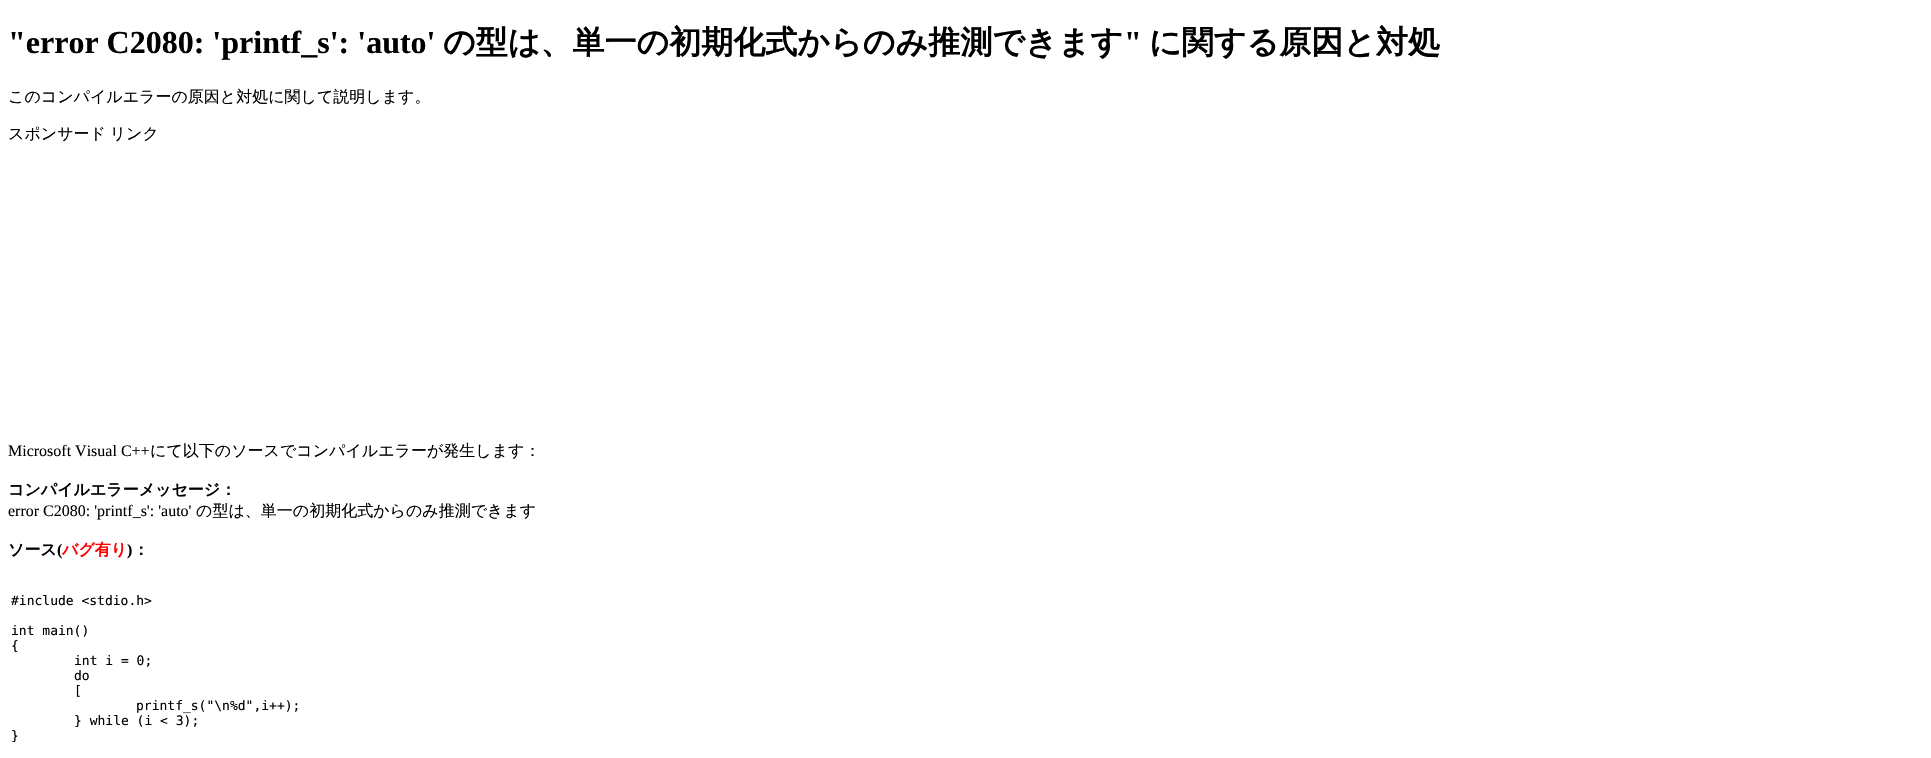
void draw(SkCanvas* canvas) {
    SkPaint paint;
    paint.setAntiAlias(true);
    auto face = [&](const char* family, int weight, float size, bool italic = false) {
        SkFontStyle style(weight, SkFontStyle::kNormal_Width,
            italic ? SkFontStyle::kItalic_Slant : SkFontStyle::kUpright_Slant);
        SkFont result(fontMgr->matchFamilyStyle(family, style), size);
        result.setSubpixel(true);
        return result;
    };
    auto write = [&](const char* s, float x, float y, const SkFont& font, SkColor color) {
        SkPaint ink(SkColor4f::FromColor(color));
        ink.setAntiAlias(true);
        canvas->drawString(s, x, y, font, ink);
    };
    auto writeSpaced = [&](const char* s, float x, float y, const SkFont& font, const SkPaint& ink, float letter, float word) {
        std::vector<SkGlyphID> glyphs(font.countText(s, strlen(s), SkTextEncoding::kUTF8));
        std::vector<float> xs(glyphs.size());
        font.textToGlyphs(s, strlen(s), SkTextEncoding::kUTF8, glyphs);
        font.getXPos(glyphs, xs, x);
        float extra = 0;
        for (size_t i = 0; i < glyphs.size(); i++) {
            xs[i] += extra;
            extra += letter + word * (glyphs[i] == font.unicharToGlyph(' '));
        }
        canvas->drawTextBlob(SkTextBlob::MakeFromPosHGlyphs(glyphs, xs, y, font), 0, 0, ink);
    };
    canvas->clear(SK_ColorWHITE);
    auto kFont1 = face("Liberation Serif", 700, 32);
    write("\"error C2080: 'printf_s': 'auto'", 8, 53, kFont1, SK_ColorBLACK);
    auto kFont2 = face("WenQuanYi Zen Hei", 700, 32);
    write("の型は、単一の初期化式からのみ推測できます", 443, 53, kFont2, SK_ColorBLACK);
    write("\"", 1124, 53, kFont1, SK_ColorBLACK);
    write("に関する原因と対処", 1149, 53, kFont2, SK_ColorBLACK);
    auto kFont3 = face("WenQuanYi Zen Hei", 500, 16);
    write("このコンパイルエラーの原因と対処に関して説明します。", 8, 102, kFont3, SK_ColorBLACK);
    paint.setColor(SK_ColorBLACK);
    writeSpaced("スポンサード リンク", 8, 139, kFont3, paint, 0, -1);
    auto kFont4 = face("Liberation Serif", 400, 16);
    write("Microsoft Visual C++", 8, 456, kFont4, SK_ColorBLACK);
    write("にて以下のソースでコンパイルエラーが発生します：", 150, 456, kFont3, SK_ColorBLACK);
    auto kFont5 = face("WenQuanYi Zen Hei", 700, 16);
    write("コンパイルエラーメッセージ：", 8, 495, kFont5, SK_ColorBLACK);
    write("error C2080: 'printf_s': 'auto'", 8, 516, kFont4, SK_ColorBLACK);
    write("の型は、単一の初期化式からのみ推測できます", 196, 516, kFont3, SK_ColorBLACK);
    write("ソース", 8, 555, kFont5, SK_ColorBLACK);
    auto kFont6 = face("Liberation Serif", 700, 16);
    write("(", 57, 555, kFont6, SK_ColorBLACK);
    write("バグ有り", 62, 555, kFont5, SkColorSetRGB(255, 0, 0));
    write(")", 127, 555, kFont6, SK_ColorBLACK);
    write("：", 133, 555, kFont5, SK_ColorBLACK);
    auto kFont7 = face("DejaVu Sans Mono", 400, 13);
    write("#include <stdio.h>", 11, 605, kFont7, SK_ColorBLACK);
    write("int main()", 11, 635, kFont7, SK_ColorBLACK);
    write("{", 11, 650, kFont7, SK_ColorBLACK);
    write("int i = 0;", 74, 665, kFont7, SK_ColorBLACK);
    write("do", 74, 680, kFont7, SK_ColorBLACK);
    write("[", 74, 695, kFont7, SK_ColorBLACK);
    write("printf_s(\"\\n%d\",i++);", 136, 710, kFont7, SK_ColorBLACK);
    write("} while (i < 3);", 74, 725, kFont7, SK_ColorBLACK);
    write("}", 11, 740, kFont7, SK_ColorBLACK);
}
